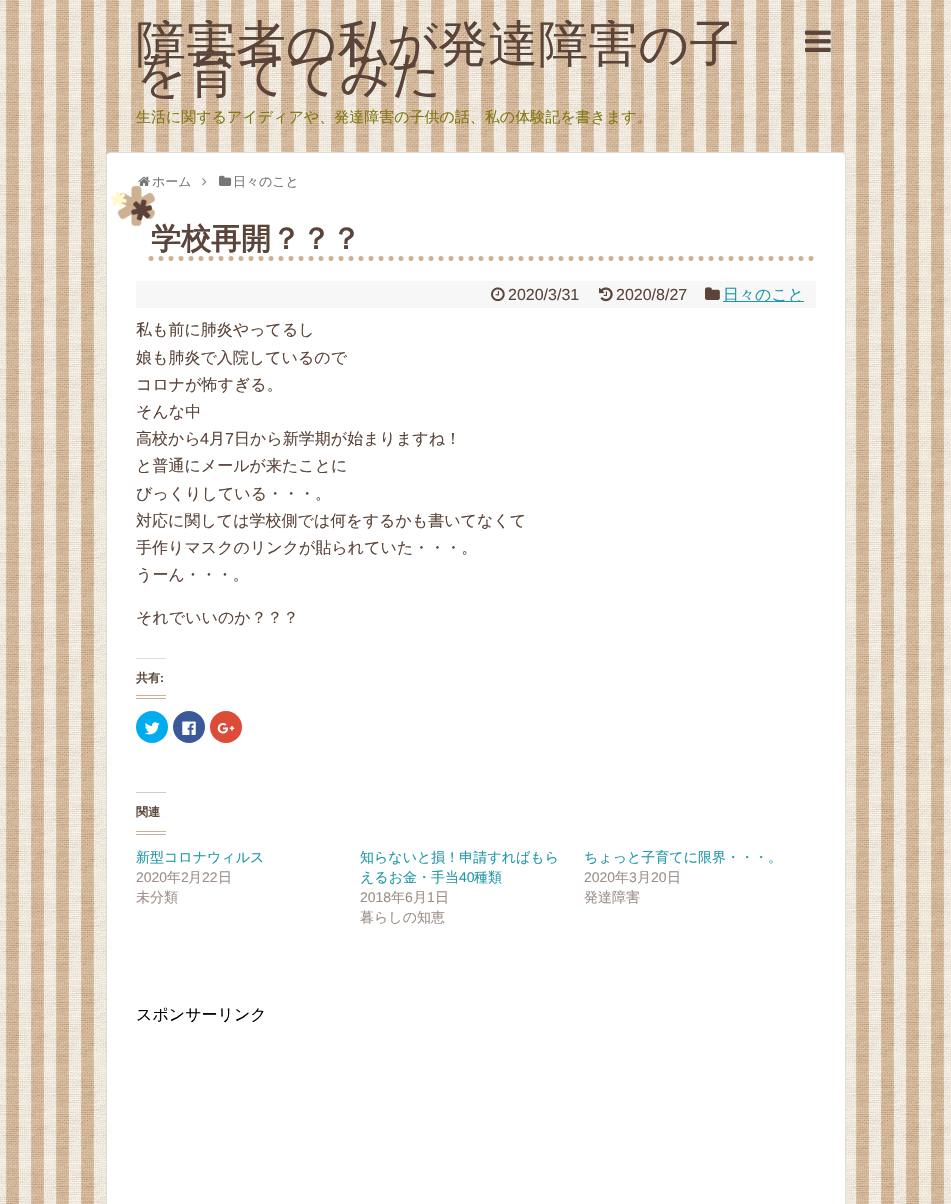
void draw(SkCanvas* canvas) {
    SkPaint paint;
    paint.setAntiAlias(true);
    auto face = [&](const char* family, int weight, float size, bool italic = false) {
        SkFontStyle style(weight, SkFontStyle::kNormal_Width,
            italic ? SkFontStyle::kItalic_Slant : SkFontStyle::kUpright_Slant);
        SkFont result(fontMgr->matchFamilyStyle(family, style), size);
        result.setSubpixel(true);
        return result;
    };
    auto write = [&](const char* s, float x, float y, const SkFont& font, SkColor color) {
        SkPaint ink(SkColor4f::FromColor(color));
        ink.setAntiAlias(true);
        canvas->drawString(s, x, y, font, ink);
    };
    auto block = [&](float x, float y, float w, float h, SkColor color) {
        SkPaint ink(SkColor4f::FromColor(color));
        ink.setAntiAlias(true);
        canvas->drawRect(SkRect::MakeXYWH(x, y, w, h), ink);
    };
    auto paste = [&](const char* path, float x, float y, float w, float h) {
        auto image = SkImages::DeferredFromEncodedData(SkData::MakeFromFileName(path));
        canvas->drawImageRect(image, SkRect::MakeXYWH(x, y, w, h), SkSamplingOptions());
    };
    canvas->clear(SK_ColorWHITE);
    paste("pic1.png", 0, 0, 951, 1204);
    canvas->save();
    canvas->clipRect(SkRect::MakeXYWH(106, 20, 740, 117));
    auto kFont1 = face("WenQuanYi Zen Hei", 500, 50);
    write("障害者の私が発達障害の子", 136, 61, kFont1, SkColorSetRGB(91, 68, 57));
    canvas->restore();
    write("を育ててみた", 136, 91, kFont1, SkColorSetRGB(91, 68, 57));
    auto kFont2 = face("WenQuanYi Zen Hei", 500, 15);
    write("生活に関するアイディアや、発達障害の子供の話、私の体験記を書きます。", 136, 122, kFont2, SkColorSetRGB(130, 120, 20));
    paste("pic2.png", 805, 30, 26, 22);
    paint.setColor(SK_ColorWHITE);
    canvas->drawRoundRect(SkRect::MakeXYWH(106.5f, 152.5f, 739, 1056), 3.5f, 3.5f, paint);
    paint.setStyle(SkPaint::kStroke_Style);
    paint.setStrokeWidth(1);
    paint.setColor(SkColorSetRGB(221, 221, 221));
    canvas->drawRoundRect(SkRect::MakeXYWH(106.5f, 152.5f, 739, 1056), 3.5f, 3.5f, paint);
    paste("pic3.png", 138, 176, 12, 10);
    auto kFont3 = face("WenQuanYi Zen Hei", 500, 13);
    write("ホーム", 152, 186, kFont3, SkColorSetRGB(119, 119, 119));
    paste("pic4.png", 202, 178, 5, 8);
    paste("pic5.png", 219, 175, 13, 11);
    write("日々のこと", 233, 186, kFont3, SkColorSetRGB(119, 119, 119));
    paint.setStrokeWidth(5);
    paint.setStrokeCap(SkPaint::kRound_Cap);
    paint.setColor(SkColorSetRGB(206, 177, 146));
    paint.setPathEffect(SkDashPathEffect::Make({{0, 10}}, 0));
    canvas->drawPath(SkPathBuilder().moveTo(151, 258.5f).lineTo(816, 258.5f).detach(), paint);
    paint.setPathEffect(nullptr);
    auto kFont4 = face("WenQuanYi Zen Hei", 700, 30);
    write("学校再開？？？", 151, 249, kFont4, SkColorSetRGB(91, 68, 57));
    paste("pic6.png", 111, 186, 44, 40);
    block(136, 281, 680, 27, SkColorSetRGB(247, 247, 247));
    paste("pic7.png", 491, 287, 14, 15);
    auto kFont5 = face("Liberation Sans", 400, 16);
    write("2020/3/31", 508, 300, kFont5, SkColorSetRGB(91, 68, 57));
    paste("pic8.png", 599, 287, 14, 15);
    write("2020/8/27", 616, 300, kFont5, SkColorSetRGB(91, 68, 57));
    paste("pic9.png", 705, 287, 15, 13);
    block(723, 301, 81, 1, SkColorSetRGB(32, 152, 168));
    auto kFont6 = face("WenQuanYi Zen Hei", 500, 16);
    write("日々のこと", 723, 300, kFont6, SkColorSetRGB(32, 152, 168));
    write("私も前に肺炎やってるし", 136, 335, kFont6, SkColorSetRGB(91, 68, 57));
    write("娘も肺炎で入院しているので", 136, 363, kFont6, SkColorSetRGB(91, 68, 57));
    write("コロナが怖すぎる。", 136, 390, kFont6, SkColorSetRGB(91, 68, 57));
    write("そんな中", 136, 417, kFont6, SkColorSetRGB(91, 68, 57));
    write("高校から", 136, 444, kFont6, SkColorSetRGB(91, 68, 57));
    write("4", 200, 444, kFont5, SkColorSetRGB(91, 68, 57));
    write("月", 209, 444, kFont6, SkColorSetRGB(91, 68, 57));
    write("7", 225, 444, kFont5, SkColorSetRGB(91, 68, 57));
    write("日から新学期が始まりますね！", 234, 444, kFont6, SkColorSetRGB(91, 68, 57));
    write("と普通にメールが来たことに", 136, 471, kFont6, SkColorSetRGB(91, 68, 57));
    write("びっくりしている・・・。", 136, 499, kFont6, SkColorSetRGB(91, 68, 57));
    write("対応に関しては学校側では何をするかも書いてなくて", 136, 526, kFont6, SkColorSetRGB(91, 68, 57));
    write("手作りマスクのリンクが貼られていた・・・。", 136, 553, kFont6, SkColorSetRGB(91, 68, 57));
    write("うーん・・・。", 136, 580, kFont6, SkColorSetRGB(91, 68, 57));
    write("それでいいのか？？？", 136, 623, kFont6, SkColorSetRGB(91, 68, 57));
    block(136, 695, 30, 1, SkColorSetRGB(206, 177, 146));
    block(136, 698, 30, 1, SkColorSetRGB(206, 177, 146));
    block(136, 658, 30, 1, SkColorSetRGB(221, 221, 221));
    auto kFont7 = face("WenQuanYi Zen Hei", 700, 12);
    write("共有", 136, 682, kFont7, SkColorSetRGB(91, 68, 57));
    auto kFont8 = face("Liberation Sans", 700, 12);
    write(":", 160, 682, kFont8, SkColorSetRGB(91, 68, 57));
    paint.setStyle(SkPaint::kFill_Style);
    paint.setColor(SkColorSetRGB(0, 172, 238));
    canvas->drawCircle(152, 727, 16, paint);
    paste("pic10.png", 144, 722, 16, 13);
    paint.setColor(SkColorSetRGB(59, 89, 152));
    canvas->drawCircle(189, 727, 16, paint);
    paste("pic11.png", 182, 721, 14, 14);
    paint.setColor(SkColorSetRGB(221, 75, 57));
    canvas->drawCircle(226, 727, 16, paint);
    paste("pic12.png", 217, 723, 18, 11);
    block(136, 831, 30, 1, SkColorSetRGB(206, 177, 146));
    block(136, 834, 30, 1, SkColorSetRGB(206, 177, 146));
    block(136, 792, 30, 1, SkColorSetRGB(204, 204, 204));
    write("関連", 136, 816, kFont7, SkColorSetRGB(91, 68, 57));
    auto kFont9 = face("WenQuanYi Zen Hei", 500, 14);
    write("新型コロナウィルス", 136, 862, kFont9, SkColorSetRGB(32, 152, 168));
    auto kFont10 = face("Liberation Sans", 400, 14);
    write("2020", 136, 882, kFont10, SkColorSetRGB(157, 143, 136));
    write("年", 167, 882, kFont9, SkColorSetRGB(157, 143, 136));
    write("2", 181, 882, kFont10, SkColorSetRGB(157, 143, 136));
    write("月", 188, 882, kFont9, SkColorSetRGB(157, 143, 136));
    write("22", 202, 882, kFont10, SkColorSetRGB(157, 143, 136));
    write("日", 218, 882, kFont9, SkColorSetRGB(157, 143, 136));
    write("未分類", 136, 902, kFont9, SkColorSetRGB(157, 143, 136));
    write("知らないと損！申請すればもら", 360, 862, kFont9, SkColorSetRGB(32, 152, 168));
    write("えるお金・手当", 360, 882, kFont9, SkColorSetRGB(32, 152, 168));
    write("40", 459, 882, kFont10, SkColorSetRGB(32, 152, 168));
    write("種類", 474, 882, kFont9, SkColorSetRGB(32, 152, 168));
    write("2018", 360, 902, kFont10, SkColorSetRGB(157, 143, 136));
    write("年", 391, 902, kFont9, SkColorSetRGB(157, 143, 136));
    write("6", 405, 902, kFont10, SkColorSetRGB(157, 143, 136));
    write("月", 413, 902, kFont9, SkColorSetRGB(157, 143, 136));
    write("1", 427, 902, kFont10, SkColorSetRGB(157, 143, 136));
    write("日", 435, 902, kFont9, SkColorSetRGB(157, 143, 136));
    write("暮らしの知恵", 360, 922, kFont9, SkColorSetRGB(157, 143, 136));
    write("ちょっと子育てに限界・・・。", 584, 862, kFont9, SkColorSetRGB(32, 152, 168));
    write("2020", 584, 882, kFont10, SkColorSetRGB(157, 143, 136));
    write("年", 615, 882, kFont9, SkColorSetRGB(157, 143, 136));
    write("3", 629, 882, kFont10, SkColorSetRGB(157, 143, 136));
    write("月", 637, 882, kFont9, SkColorSetRGB(157, 143, 136));
    write("20", 651, 882, kFont10, SkColorSetRGB(157, 143, 136));
    write("日", 667, 882, kFont9, SkColorSetRGB(157, 143, 136));
    write("発達障害", 584, 902, kFont9, SkColorSetRGB(157, 143, 136));
    write("スポンサーリンク", 136, 1020, kFont6, SK_ColorBLACK);
}
